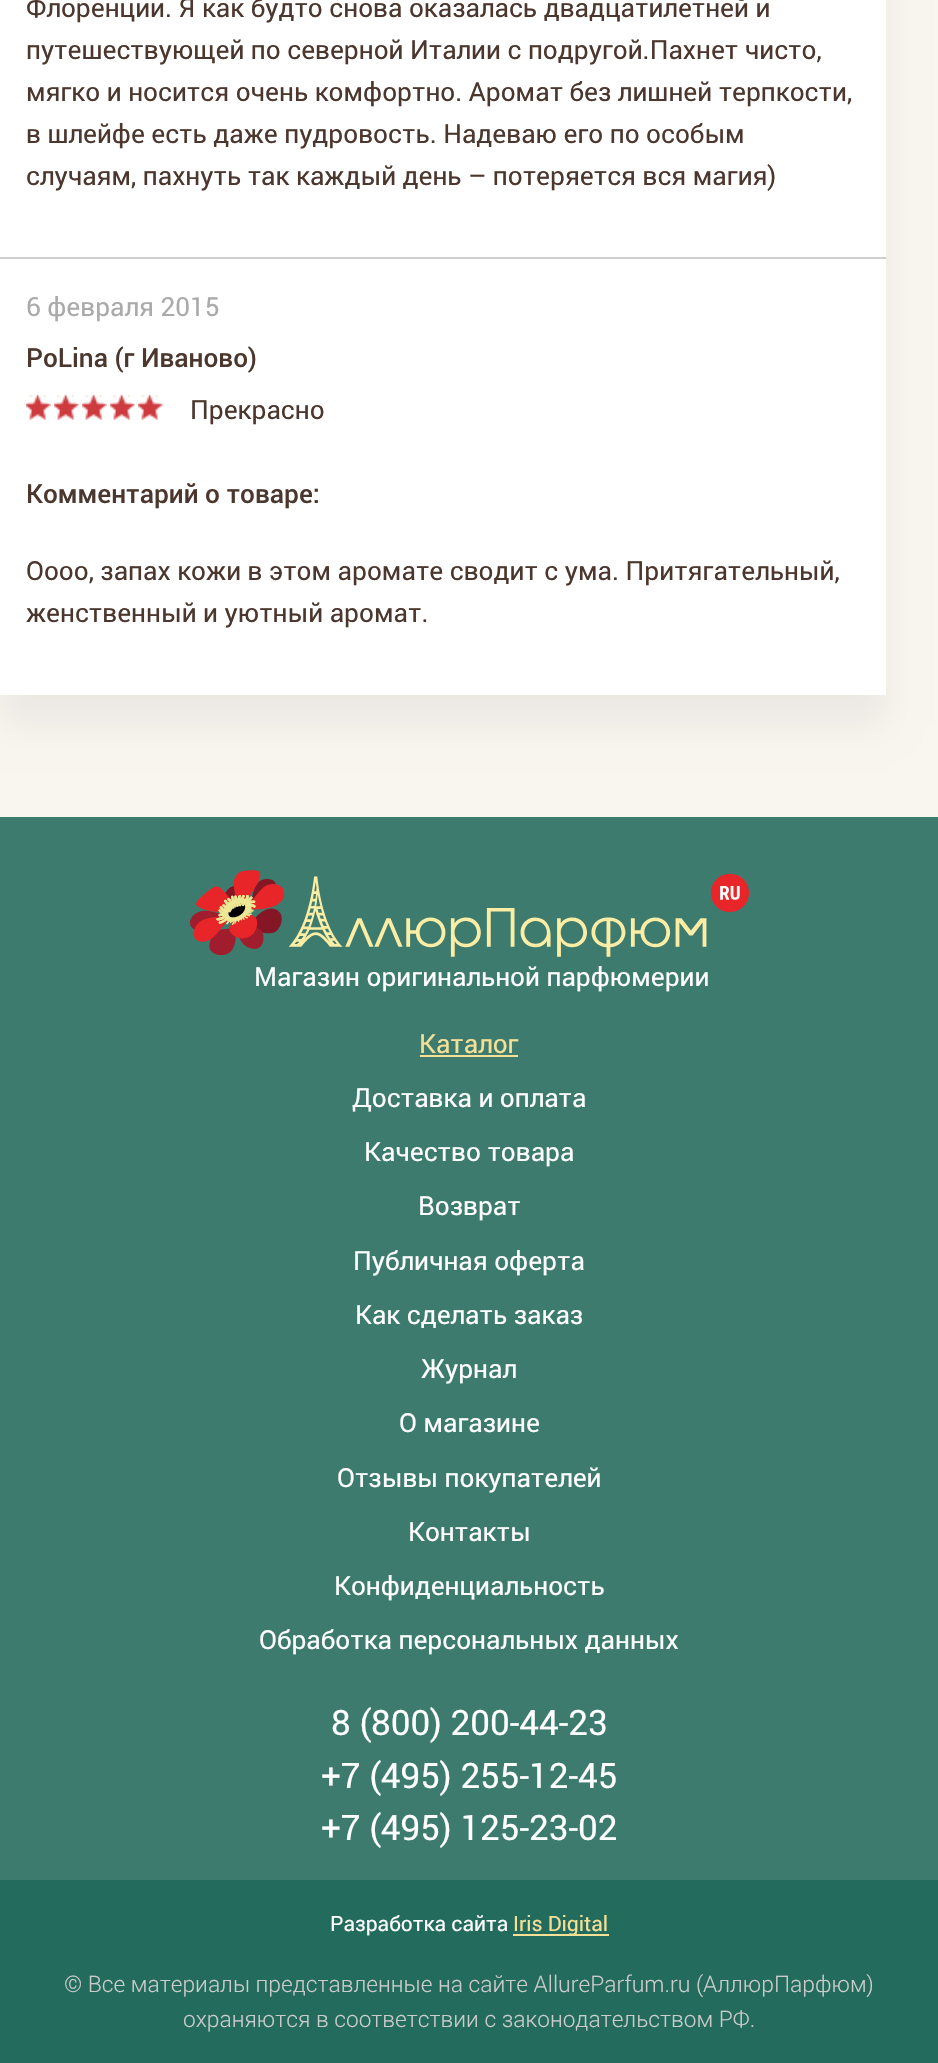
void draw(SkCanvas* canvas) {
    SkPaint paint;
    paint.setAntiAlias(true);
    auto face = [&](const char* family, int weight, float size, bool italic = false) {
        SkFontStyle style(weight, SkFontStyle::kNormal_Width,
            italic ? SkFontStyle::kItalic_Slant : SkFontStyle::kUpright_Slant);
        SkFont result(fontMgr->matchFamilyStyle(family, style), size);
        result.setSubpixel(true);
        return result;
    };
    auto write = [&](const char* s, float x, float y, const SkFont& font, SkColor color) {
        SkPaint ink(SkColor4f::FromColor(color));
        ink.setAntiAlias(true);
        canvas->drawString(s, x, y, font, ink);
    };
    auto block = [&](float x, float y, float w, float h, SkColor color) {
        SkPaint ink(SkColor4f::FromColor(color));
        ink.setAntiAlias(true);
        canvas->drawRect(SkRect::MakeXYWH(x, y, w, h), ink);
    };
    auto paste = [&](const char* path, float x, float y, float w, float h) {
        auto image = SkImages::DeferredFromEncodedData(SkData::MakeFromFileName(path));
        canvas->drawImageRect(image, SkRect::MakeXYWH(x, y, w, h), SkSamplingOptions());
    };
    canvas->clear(SkColorSetRGB(249, 245, 239));
    paint.setColor(SkColorSetARGB(13, 0, 0, 0));
    paint.setMaskFilter(SkMaskFilter::MakeBlur(kNormal_SkBlurStyle, 16));
    canvas->drawRect(SkRect::MakeXYWH(0, -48, 886, 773), paint);
    paint.setMaskFilter(nullptr);
    block(0, 0, 886, 695, SK_ColorWHITE);
    block(0, 257, 886, 2, SkColorSetRGB(207, 207, 207));
    auto kFont1 = face("Roboto", 400, 26.25f);
    write("Флоренции. Я как будто снова оказалась двадцатилетней и", 26, 17, kFont1, SkColorSetRGB(76, 55, 46));
    write("путешествующей по северной Италии с подругой.Пахнет чисто,", 26, 59, kFont1, SkColorSetRGB(76, 55, 46));
    write("мягко и носится очень комфортно. Аромат без лишней терпкости,", 26, 101, kFont1, SkColorSetRGB(76, 55, 46));
    write("в шлейфе есть даже пудровость. Надеваю его по особым", 26, 143, kFont1, SkColorSetRGB(76, 55, 46));
    write("случаям, пахнуть так каждый день – потеряется вся магия)", 26, 185, kFont1, SkColorSetRGB(76, 55, 46));
    write("6 февраля 2015", 26, 316, kFont1, SkColorSetRGB(170, 170, 170));
    auto kFont2 = face("Roboto", 500, 26.25f);
    write("PoLina (г Иваново)", 26, 367, kFont2, SkColorSetRGB(76, 55, 46));
    paste("pic1.png", 26, 395, 25, 25);
    paste("pic2.png", 54, 395, 25, 25);
    paste("pic2.png", 82, 395, 25, 25);
    paste("pic2.png", 110, 395, 25, 25);
    paste("pic1.png", 138, 395, 25, 25);
    write("Прекрасно", 190, 419, kFont1, SkColorSetRGB(76, 55, 46));
    write("Комментарий о товаре:", 26, 503, kFont2, SkColorSetRGB(76, 55, 46));
    write("Оооо, запах кожи в этом аромате сводит с ума. Притягательный,", 26, 580, kFont1, SkColorSetRGB(76, 55, 46));
    write("женственный и уютный аромат.", 26, 622, kFont1, SkColorSetRGB(76, 55, 46));
    block(0, 817, 938, 1063, SkColorSetRGB(61, 123, 111));
    paste("pic3.png", 190, 870, 559, 87);
    write("Магазин оригинальной парфюмерии", 254, 986, kFont1, SK_ColorWHITE);
    write("Каталог", 419, 1053, kFont1, SkColorSetRGB(245, 224, 150));
    block(420, 1055, 98, 2, SkColorSetRGB(245, 224, 150));
    write("Доставка и оплата", 352, 1107, kFont1, SK_ColorWHITE);
    write("Качество товара", 364, 1161, kFont1, SK_ColorWHITE);
    write("Возврат", 418, 1215, kFont1, SK_ColorWHITE);
    write("Публичная оферта", 353, 1270, kFont1, SK_ColorWHITE);
    write("Как сделать заказ", 355, 1324, kFont1, SK_ColorWHITE);
    write("Журнал", 421, 1378, kFont1, SK_ColorWHITE);
    write("О магазине", 399, 1432, kFont1, SK_ColorWHITE);
    write("Отзывы покупателей", 337, 1487, kFont1, SK_ColorWHITE);
    write("Контакты", 408, 1541, kFont1, SK_ColorWHITE);
    write("Конфиденциальность", 334, 1595, kFont1, SK_ColorWHITE);
    write("Обработка персональных данных", 259, 1649, kFont1, SK_ColorWHITE);
    auto kFont3 = face("Roboto", 400, 35);
    write("8 (800) 200-44-23", 331, 1735, kFont3, SK_ColorWHITE);
    write("+7 (495) 255-12-45", 321, 1788, kFont3, SK_ColorWHITE);
    write("+7 (495) 125-23-02", 321, 1840, kFont3, SK_ColorWHITE);
    block(0, 1880, 938, 183, SkColorSetRGB(35, 108, 93));
    auto kFont4 = face("Roboto", 400, 21);
    write("Разработка сайта", 330, 1931, kFont4, SK_ColorWHITE);
    block(513, 1934, 96, 2, SkColorSetRGB(245, 224, 150));
    write("Iris Digital", 513, 1931, kFont4, SkColorSetRGB(245, 224, 150));
    auto kFont5 = face("Roboto", 300, 22.75f);
    write("© Все материалы представленные на сайте AllureParfum.ru (АллюрПарфюм)", 64, 1992, kFont5, SkColorSetRGB(204, 204, 204));
    write("охраняются в соответствии с законодательством РФ.", 183, 2027, kFont5, SkColorSetRGB(204, 204, 204));
}
